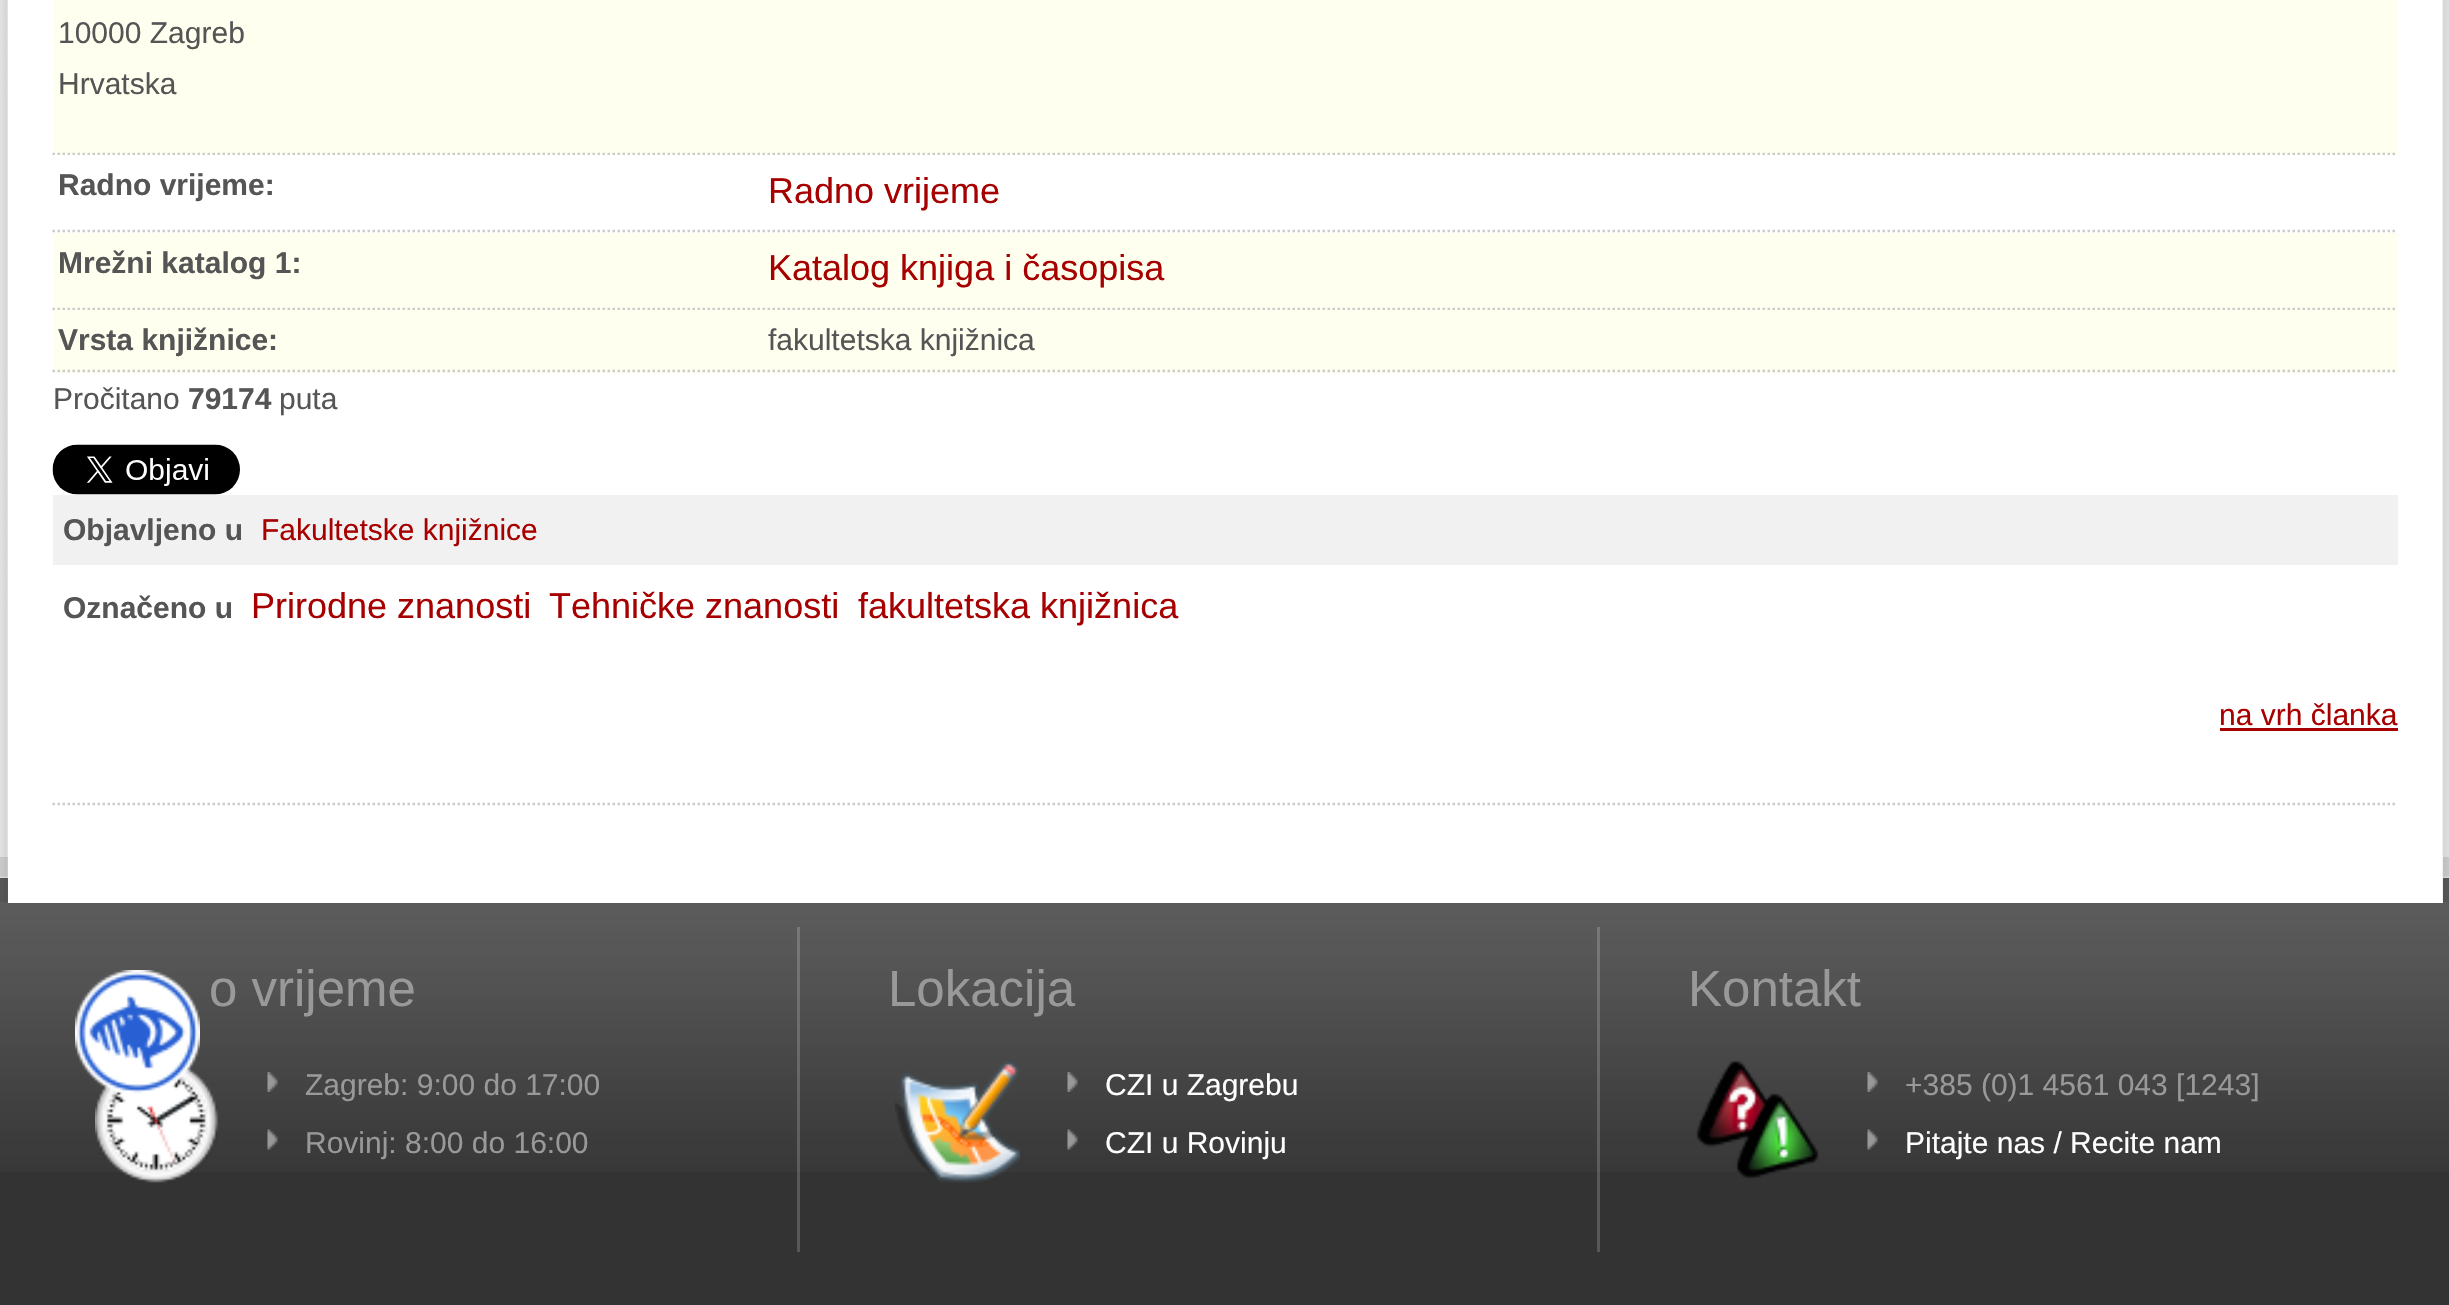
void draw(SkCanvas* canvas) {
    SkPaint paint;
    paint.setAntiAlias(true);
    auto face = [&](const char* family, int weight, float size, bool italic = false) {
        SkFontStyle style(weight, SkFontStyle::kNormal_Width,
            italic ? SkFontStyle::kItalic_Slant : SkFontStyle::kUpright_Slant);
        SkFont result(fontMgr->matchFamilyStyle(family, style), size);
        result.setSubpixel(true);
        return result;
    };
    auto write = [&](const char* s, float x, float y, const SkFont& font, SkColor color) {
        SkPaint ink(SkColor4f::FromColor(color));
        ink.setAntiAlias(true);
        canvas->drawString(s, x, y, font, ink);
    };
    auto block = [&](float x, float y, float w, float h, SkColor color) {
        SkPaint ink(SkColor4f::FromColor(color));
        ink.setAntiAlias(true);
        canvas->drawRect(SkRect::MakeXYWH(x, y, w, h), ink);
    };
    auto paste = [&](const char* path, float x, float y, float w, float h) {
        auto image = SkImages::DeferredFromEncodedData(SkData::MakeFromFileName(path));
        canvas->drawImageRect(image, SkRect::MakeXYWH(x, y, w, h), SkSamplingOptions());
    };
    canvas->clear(SkColorSetRGB(238, 238, 238));
    paste("pic1.png", 0, 857, 2449, 21);
    block(0, 878, 2449, 427, SkColorSetRGB(51, 51, 51));
    paste("pic6.png", 0, 877, 2449, 295);
    block(8, 0, 2435, 903, SK_ColorWHITE);
    paste("pic2.png", 0, 0, 8, 902);
    paste("pic3.png", 2442, 0, 7, 902);
    paint.setStyle(SkPaint::kStroke_Style);
    paint.setStrokeWidth(2.5f);
    paint.setColor(SkColorSetRGB(204, 204, 204));
    paint.setPathEffect(SkDashPathEffect::Make({{2.5f, 2.5f}}, 0));
    canvas->drawPath(SkPathBuilder().moveTo(52.5f, 804).lineTo(2397.5f, 804).detach(), paint);
    paint.setPathEffect(nullptr);
    block(53, 0, 2345, 155, SkColorSetRGB(255, 255, 240));
    paint.setPathEffect(SkDashPathEffect::Make({{2.5f, 2.5f}}, 0));
    canvas->drawPath(SkPathBuilder().moveTo(52.5f, 154).lineTo(2397.5f, 154).detach(), paint);
    paint.setPathEffect(nullptr);
    auto kFont1 = face("Liberation Sans", 400, 30);
    write("10000 Zagreb", 58, 43, kFont1, SkColorSetRGB(85, 85, 85));
    write("Hrvatska", 58, 94, kFont1, SkColorSetRGB(85, 85, 85));
    block(53, 155, 2342, 1, SK_ColorWHITE);
    paint.setPathEffect(SkDashPathEffect::Make({{2.5f, 2.5f}}, 0));
    canvas->drawPath(SkPathBuilder().moveTo(52.5f, 231).lineTo(2397.5f, 231).detach(), paint);
    paint.setPathEffect(nullptr);
    auto kFont2 = face("Liberation Sans", 700, 30);
    write("Radno vrijeme:", 58, 195, kFont2, SkColorSetRGB(85, 85, 85));
    auto kFont3 = face("Liberation Sans", 400, 36);
    write("Radno vrijeme", 768, 203, kFont3, SkColorSetRGB(167, 0, 0));
    block(53, 233, 2345, 77, SkColorSetRGB(255, 255, 240));
    paint.setPathEffect(SkDashPathEffect::Make({{2.5f, 2.5f}}, 0));
    canvas->drawPath(SkPathBuilder().moveTo(52.5f, 309).lineTo(2397.5f, 309).detach(), paint);
    paint.setPathEffect(nullptr);
    write("Mrežni katalog 1:", 58, 273, kFont2, SkColorSetRGB(85, 85, 85));
    write("Katalog knjiga i časopisa", 768, 280, kFont3, SkColorSetRGB(167, 0, 0));
    block(53, 310, 2345, 63, SkColorSetRGB(255, 255, 240));
    paint.setPathEffect(SkDashPathEffect::Make({{2.5f, 2.5f}}, 0));
    canvas->drawPath(SkPathBuilder().moveTo(52.5f, 371).lineTo(2397.5f, 371).detach(), paint);
    paint.setPathEffect(nullptr);
    write("Vrsta knjižnice:", 58, 350, kFont2, SkColorSetRGB(85, 85, 85));
    write("fakultetska knjižnica", 768, 350, kFont1, SkColorSetRGB(85, 85, 85));
    write("Pročitano", 53, 409, kFont1, SkColorSetRGB(85, 85, 85));
    write("79174", 188, 409, kFont2, SkColorSetRGB(85, 85, 85));
    write("puta", 279, 409, kFont1, SkColorSetRGB(85, 85, 85));
    paste("pic4.png", 52, 444, 188, 51);
    block(53, 495, 2345, 70, SkColorSetRGB(241, 241, 241));
    write("Objavljeno u", 63, 540, kFont2, SkColorSetRGB(85, 85, 85));
    write("Fakultetske knjižnice", 261, 540, kFont1, SkColorSetRGB(167, 0, 0));
    write("Označeno u", 63, 618, kFont2, SkColorSetRGB(85, 85, 85));
    write("Prirodne znanosti", 251, 618, kFont3, SkColorSetRGB(167, 0, 0));
    write("Tehničke znanosti", 549, 618, kFont3, SkColorSetRGB(167, 0, 0));
    write("fakultetska knjižnica", 858, 618, kFont3, SkColorSetRGB(167, 0, 0));
    write("na vrh članka", 2219, 725, kFont1, SkColorSetRGB(167, 0, 0));
    block(2220, 728, 178, 3, SkColorSetRGB(167, 0, 0));
    paste("pic7.png", 95, 1066, 124, 117);
    paste("pic5.png", 75, 970, 125, 124);
    block(797, 927, 3, 325, SkColorSetARGB(46, 255, 255, 255));
    auto kFont4 = face("Liberation Sans", 400, 51);
    write("o vrijeme", 209, 1006, kFont4, SkColorSetRGB(153, 153, 153));
    paste("pic8.png", 267, 1072, 11, 20);
    write("Zagreb: 9:00 do 17:00", 305, 1095, kFont1, SkColorSetRGB(153, 153, 153));
    paste("pic9.png", 267, 1129, 11, 21);
    write("Rovinj: 8:00 do 16:00", 305, 1153, kFont1, SkColorSetRGB(153, 153, 153));
    block(1597, 927, 3, 325, SkColorSetARGB(46, 255, 255, 255));
    write("Lokacija", 888, 1006, kFont4, SkColorSetRGB(153, 153, 153));
    paste("pic10.png", 895, 1061, 125, 122);
    paste("pic11.png", 1067, 1072, 11, 20);
    write("CZI u Zagrebu", 1105, 1095, kFont1, SK_ColorWHITE);
    paste("pic12.png", 1067, 1129, 11, 21);
    write("CZI u Rovinju", 1105, 1153, kFont1, SK_ColorWHITE);
    write("Kontakt", 1688, 1006, kFont4, SkColorSetRGB(153, 153, 153));
    paste("pic13.png", 1696, 1060, 123, 119);
    paste("pic8.png", 1867, 1072, 11, 20);
    write("+385 (0)1 4561 043 [1243]", 1905, 1095, kFont1, SkColorSetRGB(153, 153, 153));
    paste("pic9.png", 1867, 1129, 11, 21);
    write("Pitajte nas / Recite nam", 1905, 1153, kFont1, SK_ColorWHITE);
}
